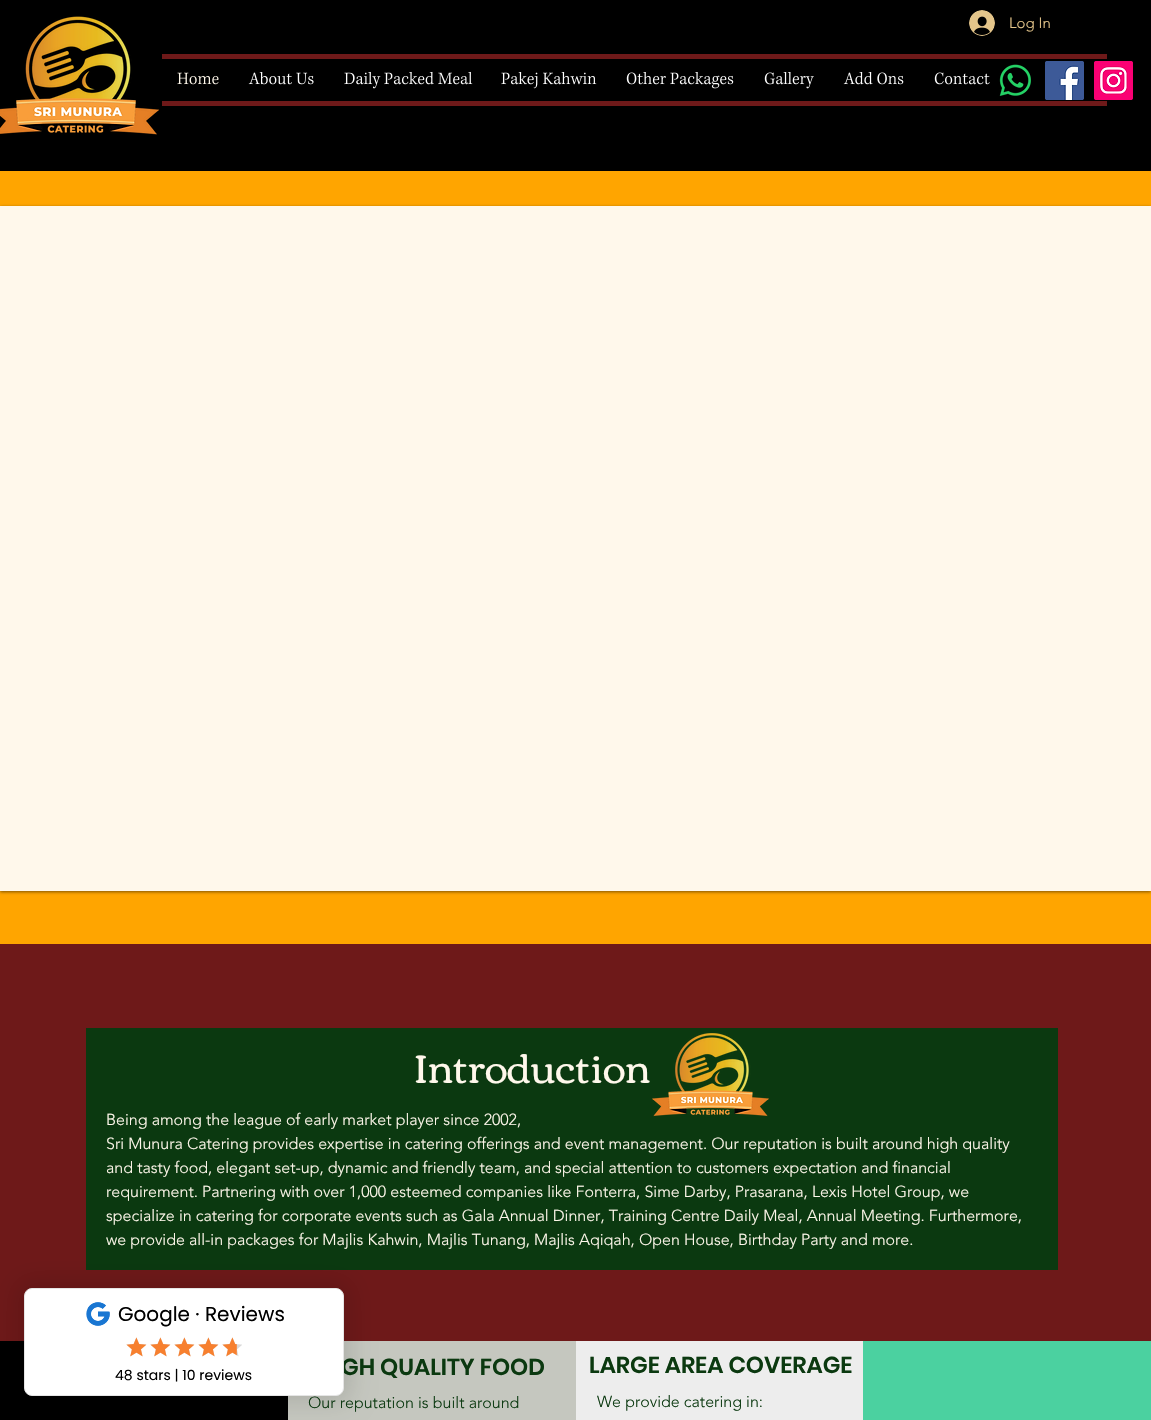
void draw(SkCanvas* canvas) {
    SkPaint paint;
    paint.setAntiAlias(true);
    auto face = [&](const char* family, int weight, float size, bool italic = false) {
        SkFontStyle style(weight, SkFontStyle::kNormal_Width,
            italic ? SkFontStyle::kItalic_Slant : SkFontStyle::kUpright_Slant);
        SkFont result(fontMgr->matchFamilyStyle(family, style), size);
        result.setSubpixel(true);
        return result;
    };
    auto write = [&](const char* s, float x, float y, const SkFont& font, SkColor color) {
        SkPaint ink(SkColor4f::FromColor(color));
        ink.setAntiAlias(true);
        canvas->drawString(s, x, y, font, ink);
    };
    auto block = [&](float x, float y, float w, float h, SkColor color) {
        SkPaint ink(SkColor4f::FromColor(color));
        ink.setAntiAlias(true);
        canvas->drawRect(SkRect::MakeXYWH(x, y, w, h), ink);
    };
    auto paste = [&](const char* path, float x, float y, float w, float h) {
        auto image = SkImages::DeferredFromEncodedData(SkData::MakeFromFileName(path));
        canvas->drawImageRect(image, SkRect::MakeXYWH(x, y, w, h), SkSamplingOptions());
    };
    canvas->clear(SkColorSetRGB(255, 165, 0));
    block(0, 0, 1151, 171, SK_ColorBLACK);
    paste("pic1.png", 0, 16, 160, 119);
    paste("pic2.png", 969, 10, 26, 26);
    auto kFont1 = face("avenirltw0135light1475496", 300, 15);
    write("Log In", 1009, 28, kFont1, SkColorSetRGB(228, 197, 138));
    block(162, 54, 945, 5, SkColorSetRGB(110, 25, 25));
    block(162, 101, 945, 5, SkColorSetRGB(110, 25, 25));
    paste("pic3.png", 177, 72, 42, 13);
    paste("pic4.png", 248, 72, 66, 13);
    paste("pic5.png", 344, 71, 129, 18);
    paste("pic6.png", 501, 72, 96, 17);
    paste("pic7.png", 626, 72, 108, 17);
    paste("pic8.png", 764, 72, 50, 17);
    paste("pic9.png", 843, 72, 61, 13);
    paste("pic10.png", 934, 72, 56, 13);
    paste("pic11.png", 999, 64, 32, 32);
    paste("pic12.png", 1045, 61, 39, 39);
    paste("pic13.png", 1094, 61, 39, 39);
    paint.setColor(SkColorSetARGB(128, 0, 0, 0));
    paint.setMaskFilter(SkMaskFilter::MakeBlur(kNormal_SkBlurStyle, 1.5f));
    canvas->drawRect(SkRect::MakeXYWH(0, 207, 1151, 685), paint);
    paint.setMaskFilter(nullptr);
    block(0, 206, 1151, 685, SkColorSetRGB(255, 248, 235));
    block(0, 944, 1151, 397, SkColorSetRGB(110, 25, 25));
    block(86, 1028, 972, 242, SkColorSetRGB(11, 57, 16));
    auto kFont2 = face("Corben", 400, 40);
    write("Introduction", 414, 1083, kFont2, SkColorSetRGB(255, 248, 235));
    paste("pic14.png", 652, 1033, 117, 84);
    auto kFont3 = face("avenirltw0135light1475496", 300, 16);
    write("Being among the league of early market player since 2002,", 106, 1125, kFont3, SkColorSetRGB(255, 248, 235));
    write("Sri Munura Catering provides expertise in catering offerings and event management. Our reputation is built around high quality", 106, 1149, kFont3, SkColorSetRGB(255, 248, 235));
    write("and tasty food, elegant set-up, dynamic and friendly team, and special attention to customers expectation and financial", 106, 1173, kFont3, SkColorSetRGB(255, 248, 235));
    write("requirement. Partnering with over 1,000 esteemed companies like Fonterra, Sime Darby, Prasarana, Lexis Hotel Group, we", 106, 1197, kFont3, SkColorSetRGB(255, 248, 235));
    write("specialize in catering for corporate events such as Gala Annual Dinner, Training Centre Daily Meal, Annual Meeting. Furthermore,", 106, 1221, kFont3, SkColorSetRGB(255, 248, 235));
    write("we provide all-in packages for Majlis Kahwin, Majlis Tunang, Majlis Aqiqah, Open House, Birthday Party and more.", 106, 1245, kFont3, SkColorSetRGB(255, 248, 235));
    block(0, 1341, 288, 79, SK_ColorBLACK);
    block(288, 1341, 288, 79, SkColorSetRGB(197, 199, 191));
    auto kFont4 = face("Poppins", 600, 23);
    write("GH QUALITY FOOD", 341, 1375, kFont4, SkColorSetRGB(11, 57, 16));
    write("Our reputation is built around", 308, 1408, kFont3, SkColorSetRGB(11, 57, 16));
    block(576, 1341, 287, 79, SkColorSetRGB(237, 237, 237));
    write("LARGE AREA COVERAGE", 589, 1373, kFont4, SkColorSetRGB(11, 57, 16));
    write("We provide catering in:", 597, 1407, kFont3, SkColorSetRGB(11, 57, 16));
    block(863, 1341, 288, 79, SkColorSetRGB(75, 209, 160));
    paint.setColor(SkColorSetARGB(31, 0, 0, 0));
    paint.setMaskFilter(SkMaskFilter::MakeBlur(kNormal_SkBlurStyle, 12));
    canvas->drawRoundRect(SkRect::MakeXYWH(18, 1282, 332, 120), 12, 12, paint);
    paint.setMaskFilter(nullptr);
    paint.setColor(SK_ColorWHITE);
    canvas->drawRoundRect(SkRect::MakeXYWH(24.5f, 1288.5f, 319, 107), 7.5f, 7.5f, paint);
    paint.setStyle(SkPaint::kStroke_Style);
    paint.setStrokeWidth(1);
    paint.setColor(SkColorSetRGB(229, 229, 229));
    canvas->drawRoundRect(SkRect::MakeXYWH(24.5f, 1288.5f, 319, 107), 7.5f, 7.5f, paint);
    paste("pic15.png", 86, 1302, 24, 24);
    auto kFont5 = face("Poppins", 400, 20);
    write("Google · Reviews", 118, 1321, kFont5, SK_ColorBLACK);
    paste("pic16.png", 126, 1337, 20, 20);
    paste("pic17.png", 126, 1337, 21, 20);
    paste("pic16.png", 150, 1337, 20, 20);
    paste("pic17.png", 150, 1337, 21, 20);
    paste("pic16.png", 174, 1337, 20, 20);
    paste("pic17.png", 174, 1337, 21, 20);
    paste("pic16.png", 198, 1337, 20, 20);
    paste("pic17.png", 198, 1337, 21, 20);
    paste("pic16.png", 222, 1337, 20, 20);
    paste("pic18.png", 222, 1337, 15, 20);
    auto kFont6 = face("Poppins", 400, 14);
    write("48 stars | 10 reviews", 115, 1380, kFont6, SK_ColorBLACK);
}
